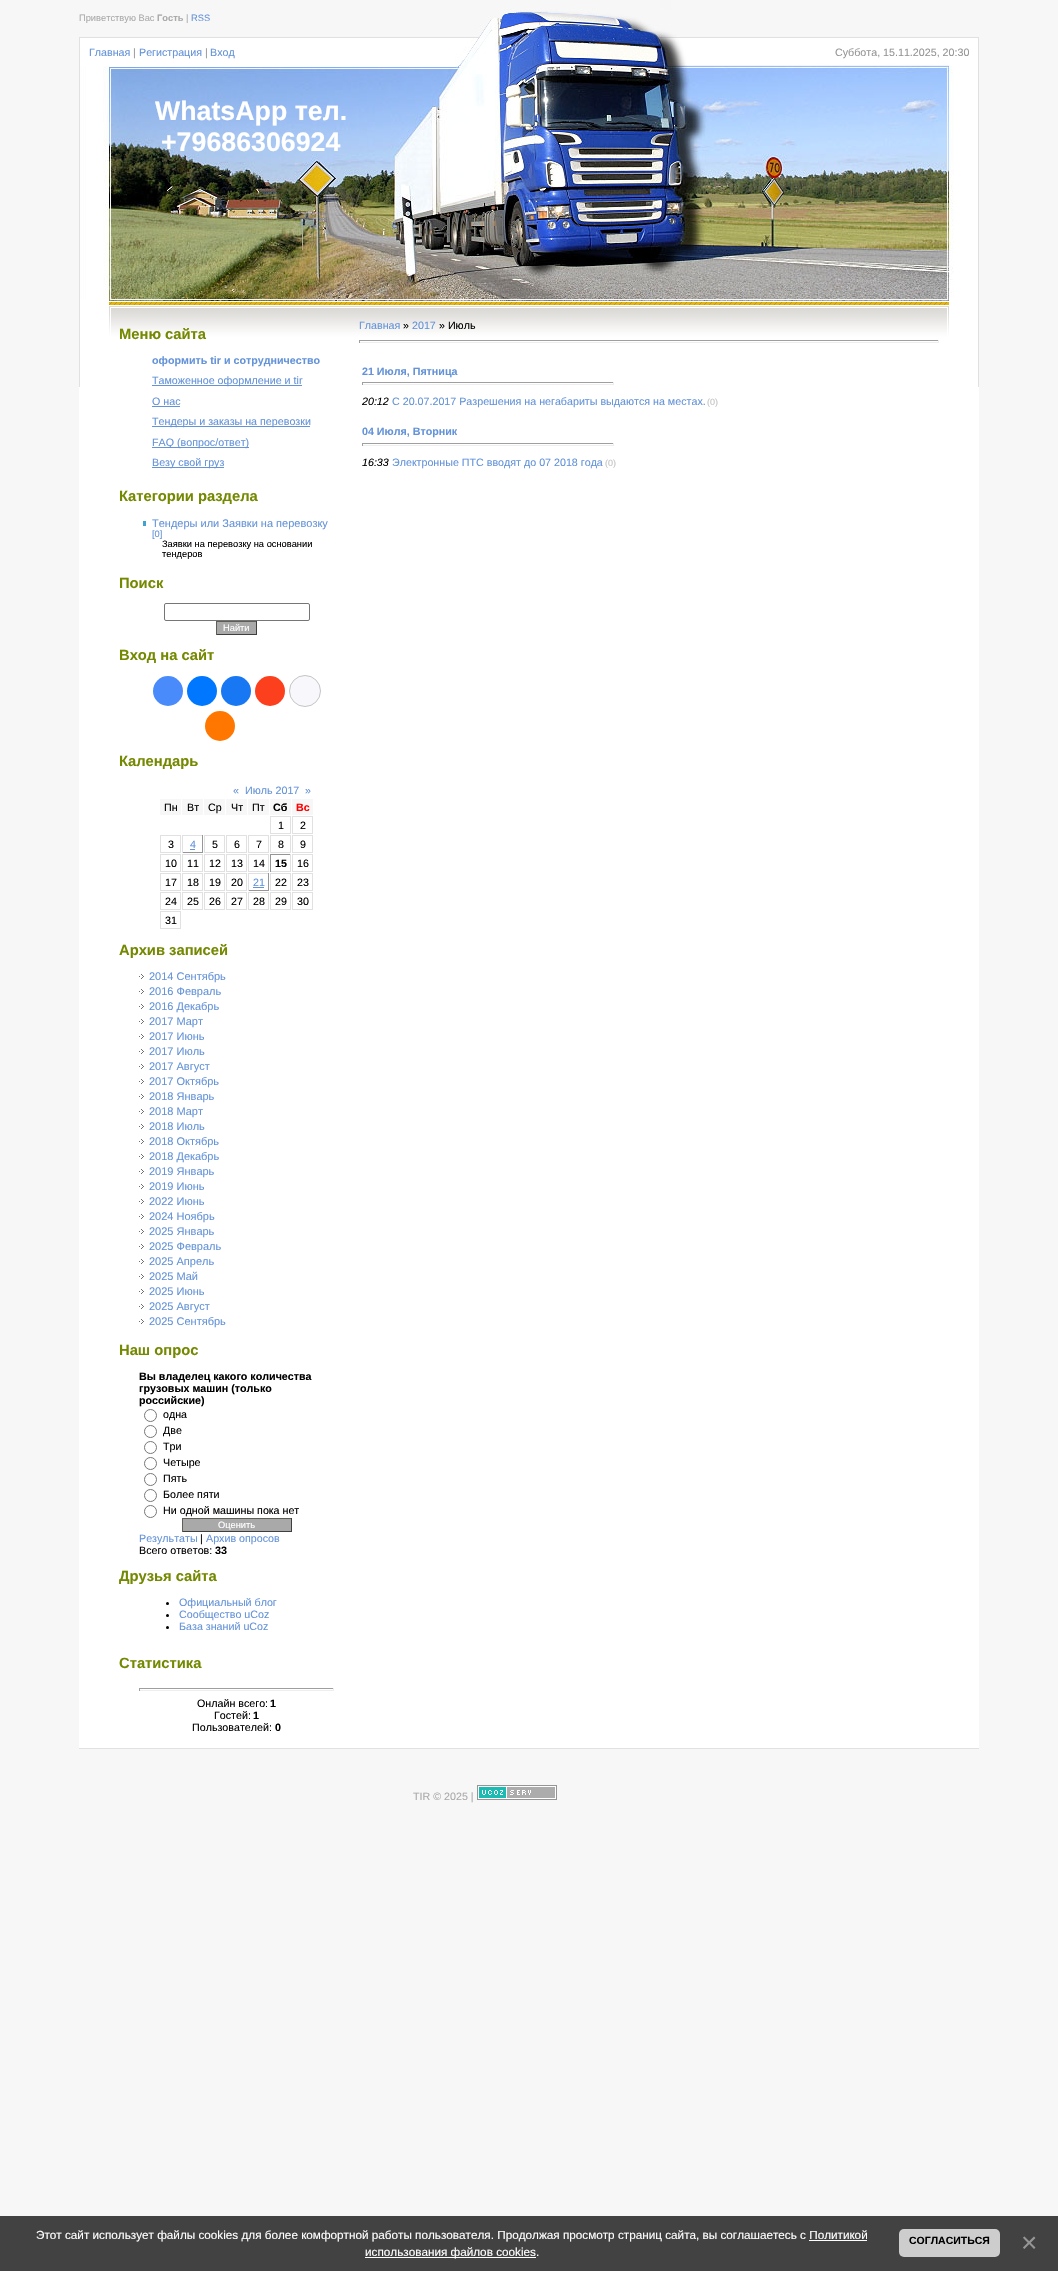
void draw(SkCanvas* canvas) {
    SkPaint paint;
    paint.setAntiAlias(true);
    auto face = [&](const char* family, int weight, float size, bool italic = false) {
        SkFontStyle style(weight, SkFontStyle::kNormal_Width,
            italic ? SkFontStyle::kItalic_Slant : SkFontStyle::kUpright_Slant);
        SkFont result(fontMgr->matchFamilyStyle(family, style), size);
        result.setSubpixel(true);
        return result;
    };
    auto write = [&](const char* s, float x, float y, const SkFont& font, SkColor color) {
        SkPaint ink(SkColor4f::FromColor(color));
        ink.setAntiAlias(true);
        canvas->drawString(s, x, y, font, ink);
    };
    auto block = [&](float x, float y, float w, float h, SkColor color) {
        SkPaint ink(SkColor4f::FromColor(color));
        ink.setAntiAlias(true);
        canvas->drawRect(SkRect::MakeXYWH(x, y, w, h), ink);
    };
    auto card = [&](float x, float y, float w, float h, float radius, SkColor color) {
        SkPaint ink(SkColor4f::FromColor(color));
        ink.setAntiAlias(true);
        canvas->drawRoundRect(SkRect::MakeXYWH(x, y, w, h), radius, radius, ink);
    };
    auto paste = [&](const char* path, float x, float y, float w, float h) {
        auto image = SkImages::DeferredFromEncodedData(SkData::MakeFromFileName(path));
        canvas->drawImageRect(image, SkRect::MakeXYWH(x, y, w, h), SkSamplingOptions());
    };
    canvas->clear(SkColorSetRGB(247, 247, 247));
    block(79, 387, 900, 1361, SK_ColorWHITE);
    paste("pic1.png", 79, 0, 900, 38);
    auto kFont1 = face("Liberation Sans", 400, 9.3f);
    write("Приветствую Вас", 79, 21, kFont1, SkColorSetRGB(171, 171, 171));
    auto kFont2 = face("Liberation Sans", 700, 9.3f);
    write("Гость", 157, 21, kFont2, SkColorSetRGB(171, 171, 171));
    write("|", 186, 21, kFont1, SkColorSetRGB(171, 171, 171));
    write("RSS", 191, 21, kFont1, SkColorSetRGB(100, 147, 216));
    paste("pic2.png", 79, 38, 900, 28);
    auto kFont3 = face("Liberation Sans", 400, 10.7f);
    write("Главная", 89, 56, kFont3, SkColorSetRGB(100, 147, 216));
    write("|", 133, 56, kFont3, SkColorSetRGB(149, 149, 149));
    write("Регистрация", 139, 56, kFont3, SkColorSetRGB(100, 147, 216));
    write("|", 205, 56, kFont3, SkColorSetRGB(149, 149, 149));
    write("Вход", 210, 56, kFont3, SkColorSetRGB(100, 147, 216));
    write("Суббота, 15.11.2025, 20:30", 835, 56, kFont3, SkColorSetRGB(149, 149, 149));
    paste("pic3.png", 522, 66, 457, 233);
    paste("pic4.png", 79, 66, 443, 233);
    auto kFont4 = face("Liberation Sans", 700, 26.75f);
    write("WhatsApp тел.", 155, 120, kFont4, SK_ColorWHITE);
    write("+79686306924", 161, 151, kFont4, SK_ColorWHITE);
    paste("pic5.png", 79, 299, 900, 88);
    block(79, 1748, 900, 1, SkColorSetRGB(225, 225, 225));
    auto kFont5 = face("Liberation Sans", 700, 14.75f);
    write("Меню сайта", 119, 339, kFont5, SkColorSetRGB(116, 136, 0));
    auto kFont6 = face("Liberation Sans", 700, 10.7f);
    write("оформить tir и сотрудничество", 152, 364, kFont6, SkColorSetRGB(100, 147, 216));
    block(152, 385, 150, 1, SkColorSetRGB(100, 147, 216));
    write("Таможенное оформление и tir", 152, 384, kFont3, SkColorSetRGB(100, 147, 216));
    write("О нас", 152, 405, kFont3, SkColorSetRGB(100, 147, 216));
    block(152, 406, 28, 1, SkColorSetRGB(100, 147, 216));
    block(152, 426, 158, 1, SkColorSetRGB(100, 147, 216));
    write("Тендеры и заказы на перевозки", 152, 425, kFont3, SkColorSetRGB(100, 147, 216));
    block(152, 447, 97, 1, SkColorSetRGB(100, 147, 216));
    write("FAQ (вопрос/ответ)", 152, 446, kFont3, SkColorSetRGB(100, 147, 216));
    block(152, 467, 72, 1, SkColorSetRGB(100, 147, 216));
    write("Везу свой груз", 152, 466, kFont3, SkColorSetRGB(100, 147, 216));
    write("Категории раздела", 119, 501, kFont5, SkColorSetRGB(116, 136, 0));
    block(143, 521, 3, 5, SkColorSetRGB(64, 163, 207));
    auto kFont7 = face("Liberation Sans", 400, 11);
    write("Тендеры или Заявки на перевозку", 152, 527, kFont7, SkColorSetRGB(100, 147, 216));
    write("[0]", 152, 537, kFont1, SkColorSetRGB(100, 147, 216));
    write("Заявки на перевозку на основании", 162, 547, kFont1, SK_ColorBLACK);
    write("тендеров", 162, 557, kFont1, SK_ColorBLACK);
    write("Поиск", 119, 588, kFont5, SkColorSetRGB(116, 136, 0));
    paint.setStyle(SkPaint::kStroke_Style);
    paint.setStrokeWidth(1);
    paint.setColor(SkColorSetRGB(118, 118, 118));
    canvas->drawRoundRect(SkRect::MakeXYWH(164.5f, 603.5f, 145, 17), 1.5f, 1.5f, paint);
    block(217, 622, 39, 12, SkColorSetRGB(169, 169, 169));
    block(216, 621, 41, 1, SkColorSetRGB(97, 94, 88));
    block(256, 621, 1, 14, SkColorSetRGB(65, 63, 59));
    block(216, 634, 41, 1, SkColorSetRGB(65, 63, 59));
    block(216, 621, 1, 14, SkColorSetRGB(97, 94, 88));
    write("Найти", 223, 631, kFont1, SK_ColorWHITE);
    write("Вход на сайт", 119, 660, kFont5, SkColorSetRGB(116, 136, 0));
    paint.setStyle(SkPaint::kFill_Style);
    paint.setColor(SkColorSetRGB(73, 139, 250));
    canvas->drawCircle(168, 691, 15, paint);
    paint.setColor(SkColorSetRGB(0, 119, 255));
    canvas->drawCircle(202, 691, 15, paint);
    paint.setColor(SkColorSetRGB(24, 119, 242));
    canvas->drawCircle(236, 691, 15, paint);
    paint.setColor(SkColorSetRGB(252, 63, 29));
    canvas->drawCircle(270, 691, 15, paint);
    paint.setColor(SkColorSetRGB(248, 248, 252));
    canvas->drawCircle(305, 691, 15.5f, paint);
    paint.setStyle(SkPaint::kStroke_Style);
    paint.setColor(SkColorSetRGB(196, 196, 196));
    canvas->drawCircle(305, 691, 15.5f, paint);
    paint.setStyle(SkPaint::kFill_Style);
    paint.setColor(SkColorSetRGB(255, 119, 0));
    canvas->drawCircle(220, 726, 15, paint);
    write("Календарь", 119, 766, kFont5, SkColorSetRGB(116, 136, 0));
    write("«", 233, 794, kFont3, SkColorSetRGB(100, 147, 216));
    write("Июль 2017", 245, 794, kFont3, SkColorSetRGB(100, 147, 216));
    write("»", 305, 794, kFont3, SkColorSetRGB(100, 147, 216));
    block(160, 799, 21, 16, SkColorSetRGB(247, 247, 247));
    write("Пн", 164, 811, kFont3, SK_ColorBLACK);
    block(182, 799, 21, 16, SkColorSetRGB(247, 247, 247));
    write("Вт", 187, 811, kFont3, SK_ColorBLACK);
    block(204, 799, 21, 16, SkColorSetRGB(247, 247, 247));
    write("Ср", 208, 811, kFont3, SK_ColorBLACK);
    block(226, 799, 21, 16, SkColorSetRGB(247, 247, 247));
    write("Чт", 231, 811, kFont3, SK_ColorBLACK);
    block(248, 799, 21, 16, SkColorSetRGB(247, 247, 247));
    write("Пт", 252, 811, kFont3, SK_ColorBLACK);
    block(270, 799, 21, 16, SkColorSetRGB(247, 247, 247));
    write("Сб", 273, 811, kFont6, SK_ColorBLACK);
    block(292, 799, 21, 16, SkColorSetRGB(247, 247, 247));
    write("Вс", 296, 811, kFont6, SkColorSetRGB(255, 0, 0));
    paint.setStyle(SkPaint::kStroke_Style);
    paint.setColor(SkColorSetRGB(225, 225, 225));
    canvas->drawRect(SkRect::MakeXYWH(270.5f, 816.5f, 20, 17), paint);
    write("1", 278, 829, kFont3, SK_ColorBLACK);
    canvas->drawRect(SkRect::MakeXYWH(292.5f, 816.5f, 20, 17), paint);
    write("2", 300, 829, kFont3, SK_ColorBLACK);
    canvas->drawRect(SkRect::MakeXYWH(160.5f, 835.5f, 20, 17), paint);
    write("3", 168, 848, kFont3, SK_ColorBLACK);
    block(182, 835, 21, 1, SkColorSetRGB(225, 225, 225));
    block(202, 835, 1, 18, SkColorSetRGB(150, 150, 150));
    block(182, 852, 21, 1, SkColorSetRGB(150, 150, 150));
    block(182, 835, 1, 18, SkColorSetRGB(225, 225, 225));
    write("4", 190, 848, kFont3, SkColorSetRGB(100, 147, 216));
    block(190, 849, 5, 1, SkColorSetRGB(100, 147, 216));
    canvas->drawRect(SkRect::MakeXYWH(204.5f, 835.5f, 20, 17), paint);
    write("5", 212, 848, kFont3, SK_ColorBLACK);
    canvas->drawRect(SkRect::MakeXYWH(226.5f, 835.5f, 20, 17), paint);
    write("6", 234, 848, kFont3, SK_ColorBLACK);
    canvas->drawRect(SkRect::MakeXYWH(248.5f, 835.5f, 20, 17), paint);
    write("7", 256, 848, kFont3, SK_ColorBLACK);
    canvas->drawRect(SkRect::MakeXYWH(270.5f, 835.5f, 20, 17), paint);
    write("8", 278, 848, kFont3, SK_ColorBLACK);
    canvas->drawRect(SkRect::MakeXYWH(292.5f, 835.5f, 20, 17), paint);
    write("9", 300, 848, kFont3, SK_ColorBLACK);
    canvas->drawRect(SkRect::MakeXYWH(160.5f, 854.5f, 20, 17), paint);
    write("10", 165, 867, kFont3, SK_ColorBLACK);
    canvas->drawRect(SkRect::MakeXYWH(182.5f, 854.5f, 20, 17), paint);
    write("11", 187, 867, kFont3, SK_ColorBLACK);
    canvas->drawRect(SkRect::MakeXYWH(204.5f, 854.5f, 20, 17), paint);
    write("12", 209, 867, kFont3, SK_ColorBLACK);
    canvas->drawRect(SkRect::MakeXYWH(226.5f, 854.5f, 20, 17), paint);
    write("13", 231, 867, kFont3, SK_ColorBLACK);
    canvas->drawRect(SkRect::MakeXYWH(248.5f, 854.5f, 20, 17), paint);
    write("14", 253, 867, kFont3, SK_ColorBLACK);
    block(270, 854, 21, 1, SkColorSetRGB(150, 150, 150));
    block(290, 854, 1, 18, SkColorSetRGB(225, 225, 225));
    block(270, 871, 21, 1, SkColorSetRGB(225, 225, 225));
    block(270, 854, 1, 18, SkColorSetRGB(150, 150, 150));
    write("15", 275, 867, kFont6, SK_ColorBLACK);
    canvas->drawRect(SkRect::MakeXYWH(292.5f, 854.5f, 20, 17), paint);
    write("16", 297, 867, kFont3, SK_ColorBLACK);
    canvas->drawRect(SkRect::MakeXYWH(160.5f, 873.5f, 20, 17), paint);
    write("17", 165, 886, kFont3, SK_ColorBLACK);
    canvas->drawRect(SkRect::MakeXYWH(182.5f, 873.5f, 20, 17), paint);
    write("18", 187, 886, kFont3, SK_ColorBLACK);
    canvas->drawRect(SkRect::MakeXYWH(204.5f, 873.5f, 20, 17), paint);
    write("19", 209, 886, kFont3, SK_ColorBLACK);
    canvas->drawRect(SkRect::MakeXYWH(226.5f, 873.5f, 20, 17), paint);
    write("20", 231, 886, kFont3, SK_ColorBLACK);
    block(248, 873, 21, 1, SkColorSetRGB(225, 225, 225));
    block(268, 873, 1, 18, SkColorSetRGB(150, 150, 150));
    block(248, 890, 21, 1, SkColorSetRGB(150, 150, 150));
    block(248, 873, 1, 18, SkColorSetRGB(225, 225, 225));
    write("21", 253, 886, kFont3, SkColorSetRGB(100, 147, 216));
    block(253, 887, 11, 1, SkColorSetRGB(100, 147, 216));
    canvas->drawRect(SkRect::MakeXYWH(270.5f, 873.5f, 20, 17), paint);
    write("22", 275, 886, kFont3, SK_ColorBLACK);
    canvas->drawRect(SkRect::MakeXYWH(292.5f, 873.5f, 20, 17), paint);
    write("23", 297, 886, kFont3, SK_ColorBLACK);
    canvas->drawRect(SkRect::MakeXYWH(160.5f, 892.5f, 20, 17), paint);
    write("24", 165, 905, kFont3, SK_ColorBLACK);
    canvas->drawRect(SkRect::MakeXYWH(182.5f, 892.5f, 20, 17), paint);
    write("25", 187, 905, kFont3, SK_ColorBLACK);
    canvas->drawRect(SkRect::MakeXYWH(204.5f, 892.5f, 20, 17), paint);
    write("26", 209, 905, kFont3, SK_ColorBLACK);
    canvas->drawRect(SkRect::MakeXYWH(226.5f, 892.5f, 20, 17), paint);
    write("27", 231, 905, kFont3, SK_ColorBLACK);
    canvas->drawRect(SkRect::MakeXYWH(248.5f, 892.5f, 20, 17), paint);
    write("28", 253, 905, kFont3, SK_ColorBLACK);
    canvas->drawRect(SkRect::MakeXYWH(270.5f, 892.5f, 20, 17), paint);
    write("29", 275, 905, kFont3, SK_ColorBLACK);
    canvas->drawRect(SkRect::MakeXYWH(292.5f, 892.5f, 20, 17), paint);
    write("30", 297, 905, kFont3, SK_ColorBLACK);
    canvas->drawRect(SkRect::MakeXYWH(160.5f, 911.5f, 20, 17), paint);
    write("31", 165, 924, kFont3, SK_ColorBLACK);
    write("Архив записей", 119, 955, kFont5, SkColorSetRGB(116, 136, 0));
    paste("pic6.png", 139, 974, 5, 5);
    write("2014 Сентябрь", 149, 980, kFont7, SkColorSetRGB(100, 147, 216));
    paste("pic6.png", 139, 989, 5, 5);
    write("2016 Февраль", 149, 995, kFont7, SkColorSetRGB(100, 147, 216));
    paste("pic6.png", 139, 1004, 5, 5);
    write("2016 Декабрь", 149, 1010, kFont7, SkColorSetRGB(100, 147, 216));
    paste("pic6.png", 139, 1019, 5, 5);
    write("2017 Март", 149, 1025, kFont7, SkColorSetRGB(100, 147, 216));
    paste("pic6.png", 139, 1034, 5, 5);
    write("2017 Июнь", 149, 1040, kFont7, SkColorSetRGB(100, 147, 216));
    paste("pic6.png", 139, 1049, 5, 5);
    write("2017 Июль", 149, 1055, kFont7, SkColorSetRGB(100, 147, 216));
    paste("pic6.png", 139, 1064, 5, 5);
    write("2017 Август", 149, 1070, kFont7, SkColorSetRGB(100, 147, 216));
    paste("pic6.png", 139, 1079, 5, 5);
    write("2017 Октябрь", 149, 1085, kFont7, SkColorSetRGB(100, 147, 216));
    paste("pic6.png", 139, 1094, 5, 5);
    write("2018 Январь", 149, 1100, kFont7, SkColorSetRGB(100, 147, 216));
    paste("pic6.png", 139, 1109, 5, 5);
    write("2018 Март", 149, 1115, kFont7, SkColorSetRGB(100, 147, 216));
    paste("pic6.png", 139, 1124, 5, 5);
    write("2018 Июль", 149, 1130, kFont7, SkColorSetRGB(100, 147, 216));
    paste("pic6.png", 139, 1139, 5, 5);
    write("2018 Октябрь", 149, 1145, kFont7, SkColorSetRGB(100, 147, 216));
    paste("pic6.png", 139, 1154, 5, 5);
    write("2018 Декабрь", 149, 1160, kFont7, SkColorSetRGB(100, 147, 216));
    paste("pic6.png", 139, 1169, 5, 5);
    write("2019 Январь", 149, 1175, kFont7, SkColorSetRGB(100, 147, 216));
    paste("pic6.png", 139, 1184, 5, 5);
    write("2019 Июнь", 149, 1190, kFont7, SkColorSetRGB(100, 147, 216));
    paste("pic6.png", 139, 1199, 5, 5);
    write("2022 Июнь", 149, 1205, kFont7, SkColorSetRGB(100, 147, 216));
    paste("pic6.png", 139, 1214, 5, 5);
    write("2024 Ноябрь", 149, 1220, kFont7, SkColorSetRGB(100, 147, 216));
    paste("pic6.png", 139, 1229, 5, 5);
    write("2025 Январь", 149, 1235, kFont7, SkColorSetRGB(100, 147, 216));
    paste("pic6.png", 139, 1244, 5, 5);
    write("2025 Февраль", 149, 1250, kFont7, SkColorSetRGB(100, 147, 216));
    paste("pic6.png", 139, 1259, 5, 5);
    write("2025 Апрель", 149, 1265, kFont7, SkColorSetRGB(100, 147, 216));
    paste("pic6.png", 139, 1274, 5, 5);
    write("2025 Май", 149, 1280, kFont7, SkColorSetRGB(100, 147, 216));
    paste("pic6.png", 139, 1289, 5, 5);
    write("2025 Июнь", 149, 1295, kFont7, SkColorSetRGB(100, 147, 216));
    paste("pic6.png", 139, 1304, 5, 5);
    write("2025 Август", 149, 1310, kFont7, SkColorSetRGB(100, 147, 216));
    paste("pic6.png", 139, 1319, 5, 5);
    write("2025 Сентябрь", 149, 1325, kFont7, SkColorSetRGB(100, 147, 216));
    write("Наш опрос", 119, 1355, kFont5, SkColorSetRGB(116, 136, 0));
    write("Вы владелец какого количества", 139, 1380, kFont6, SK_ColorBLACK);
    write("грузовых машин (только", 139, 1392, kFont6, SK_ColorBLACK);
    write("российские)", 139, 1404, kFont6, SK_ColorBLACK);
    paint.setColor(SkColorSetRGB(118, 118, 118));
    canvas->drawCircle(150.5f, 1415.5f, 6, paint);
    write("одна", 163, 1418, kFont3, SK_ColorBLACK);
    canvas->drawCircle(150.5f, 1431.5f, 6, paint);
    write("Две", 163, 1434, kFont3, SK_ColorBLACK);
    canvas->drawCircle(150.5f, 1447.5f, 6, paint);
    write("Три", 163, 1450, kFont3, SK_ColorBLACK);
    canvas->drawCircle(150.5f, 1463.5f, 6, paint);
    write("Четыре", 163, 1466, kFont3, SK_ColorBLACK);
    canvas->drawCircle(150.5f, 1479.5f, 6, paint);
    write("Пять", 163, 1482, kFont3, SK_ColorBLACK);
    canvas->drawCircle(150.5f, 1495.5f, 6, paint);
    write("Более пяти", 163, 1498, kFont3, SK_ColorBLACK);
    canvas->drawCircle(150.5f, 1511.5f, 6, paint);
    write("Ни одной машины пока нет", 163, 1514, kFont3, SK_ColorBLACK);
    block(183, 1519, 108, 12, SkColorSetRGB(169, 169, 169));
    block(182, 1518, 110, 1, SkColorSetRGB(97, 94, 88));
    block(291, 1518, 1, 14, SkColorSetRGB(65, 63, 59));
    block(182, 1531, 110, 1, SkColorSetRGB(65, 63, 59));
    block(182, 1518, 1, 14, SkColorSetRGB(97, 94, 88));
    write("Оценить", 218, 1528, kFont1, SK_ColorWHITE);
    write("Результаты", 139, 1542, kFont3, SkColorSetRGB(100, 147, 216));
    write("|", 200, 1542, kFont3, SK_ColorBLACK);
    write("Архив опросов", 206, 1542, kFont3, SkColorSetRGB(100, 147, 216));
    write("Всего ответов:", 139, 1554, kFont3, SK_ColorBLACK);
    write("33", 215, 1554, kFont6, SK_ColorBLACK);
    write("Друзья сайта", 119, 1581, kFont5, SkColorSetRGB(116, 136, 0));
    paint.setStyle(SkPaint::kFill_Style);
    paint.setColor(SK_ColorBLACK);
    canvas->drawCircle(167.5f, 1603.5f, 1.5f, paint);
    write("Официальный блог", 179, 1606, kFont3, SkColorSetRGB(100, 147, 216));
    canvas->drawCircle(167.5f, 1615.5f, 1.5f, paint);
    write("Сообщество uCoz", 179, 1618, kFont3, SkColorSetRGB(100, 147, 216));
    canvas->drawCircle(167.5f, 1627.5f, 1.5f, paint);
    write("База знаний uCoz", 179, 1630, kFont3, SkColorSetRGB(100, 147, 216));
    write("Статистика", 119, 1668, kFont5, SkColorSetRGB(116, 136, 0));
    block(139, 1688, 195, 1, SkColorSetRGB(159, 159, 159));
    block(333, 1688, 1, 3, SkColorSetRGB(238, 238, 238));
    block(139, 1690, 195, 1, SkColorSetRGB(238, 238, 238));
    block(139, 1688, 1, 3, SkColorSetRGB(159, 159, 159));
    write("Онлайн всего:", 197, 1707, kFont3, SK_ColorBLACK);
    write("1", 270, 1707, kFont6, SK_ColorBLACK);
    write("Гостей:", 214, 1719, kFont3, SK_ColorBLACK);
    write("1", 253, 1719, kFont6, SK_ColorBLACK);
    write("Пользователей:", 192, 1731, kFont3, SK_ColorBLACK);
    write("0", 275, 1731, kFont6, SK_ColorBLACK);
    write("Главная", 359, 329, kFont3, SkColorSetRGB(100, 147, 216));
    write("»", 403, 329, kFont3, SK_ColorBLACK);
    write("2017", 412, 329, kFont3, SkColorSetRGB(100, 147, 216));
    write("» Июль", 439, 329, kFont3, SK_ColorBLACK);
    block(359, 340, 580, 1, SkColorSetRGB(159, 159, 159));
    block(938, 340, 1, 3, SkColorSetRGB(238, 238, 238));
    block(359, 342, 580, 1, SkColorSetRGB(238, 238, 238));
    block(359, 340, 1, 3, SkColorSetRGB(159, 159, 159));
    write("21 Июля, Пятница", 362, 375, kFont6, SkColorSetRGB(100, 147, 216));
    block(362, 382, 252, 1, SkColorSetRGB(159, 159, 159));
    block(613, 382, 1, 3, SkColorSetRGB(238, 238, 238));
    block(362, 384, 252, 1, SkColorSetRGB(238, 238, 238));
    block(362, 382, 1, 3, SkColorSetRGB(159, 159, 159));
    auto kFont8 = face("Liberation Sans", 400, 10.7f, true);
    write("20:12", 362, 405, kFont8, SK_ColorBLACK);
    write("С 20.07.2017 Разрешения на негабариты выдаются на местах.", 392, 405, kFont3, SkColorSetRGB(100, 147, 216));
    auto kFont9 = face("Liberation Sans", 400, 9);
    write("(0)", 707, 405, kFont9, SkColorSetRGB(195, 195, 195));
    write("04 Июля, Вторник", 362, 435, kFont6, SkColorSetRGB(100, 147, 216));
    block(362, 443, 252, 1, SkColorSetRGB(159, 159, 159));
    block(613, 443, 1, 3, SkColorSetRGB(238, 238, 238));
    block(362, 445, 252, 1, SkColorSetRGB(238, 238, 238));
    block(362, 443, 1, 3, SkColorSetRGB(159, 159, 159));
    write("16:33", 362, 466, kFont8, SK_ColorBLACK);
    write("Электронные ПТС вводят до 07 2018 года", 392, 466, kFont3, SkColorSetRGB(100, 147, 216));
    write("(0)", 605, 466, kFont9, SkColorSetRGB(195, 195, 195));
    write("TIR © 2025 |", 413, 1800, kFont3, SkColorSetRGB(171, 171, 171));
    paste("pic7.png", 477, 1785, 80, 15);
    block(0, 2216, 1058, 55, SkColorSetRGB(66, 66, 66));
    auto kFont10 = face("Liberation Sans", 400, 11.73f);
    write("Этот сайт использует файлы cookies для более комфортной работы пользователя. Продолжая просмотр страниц сайта, вы соглашаетесь с Политикой", 36, 2239, kFont10, SK_ColorWHITE);
    block(365, 2257, 171, 1, SK_ColorWHITE);
    write("использования файлов cookies.", 365, 2256, kFont10, SK_ColorWHITE);
    block(809, 2240, 58, 1, SK_ColorWHITE);
    card(899, 2229, 101, 28, 5, SkColorSetRGB(205, 205, 205));
    auto kFont11 = face("Liberation Sans", 700, 10.5f);
    write("СОГЛАСИТЬСЯ", 909, 2244, kFont11, SK_ColorBLACK);
    auto kFont12 = face("Liberation Sans", 400, 28);
    write("×", 1021, 2252, kFont12, SkColorSetRGB(149, 149, 149));
}
